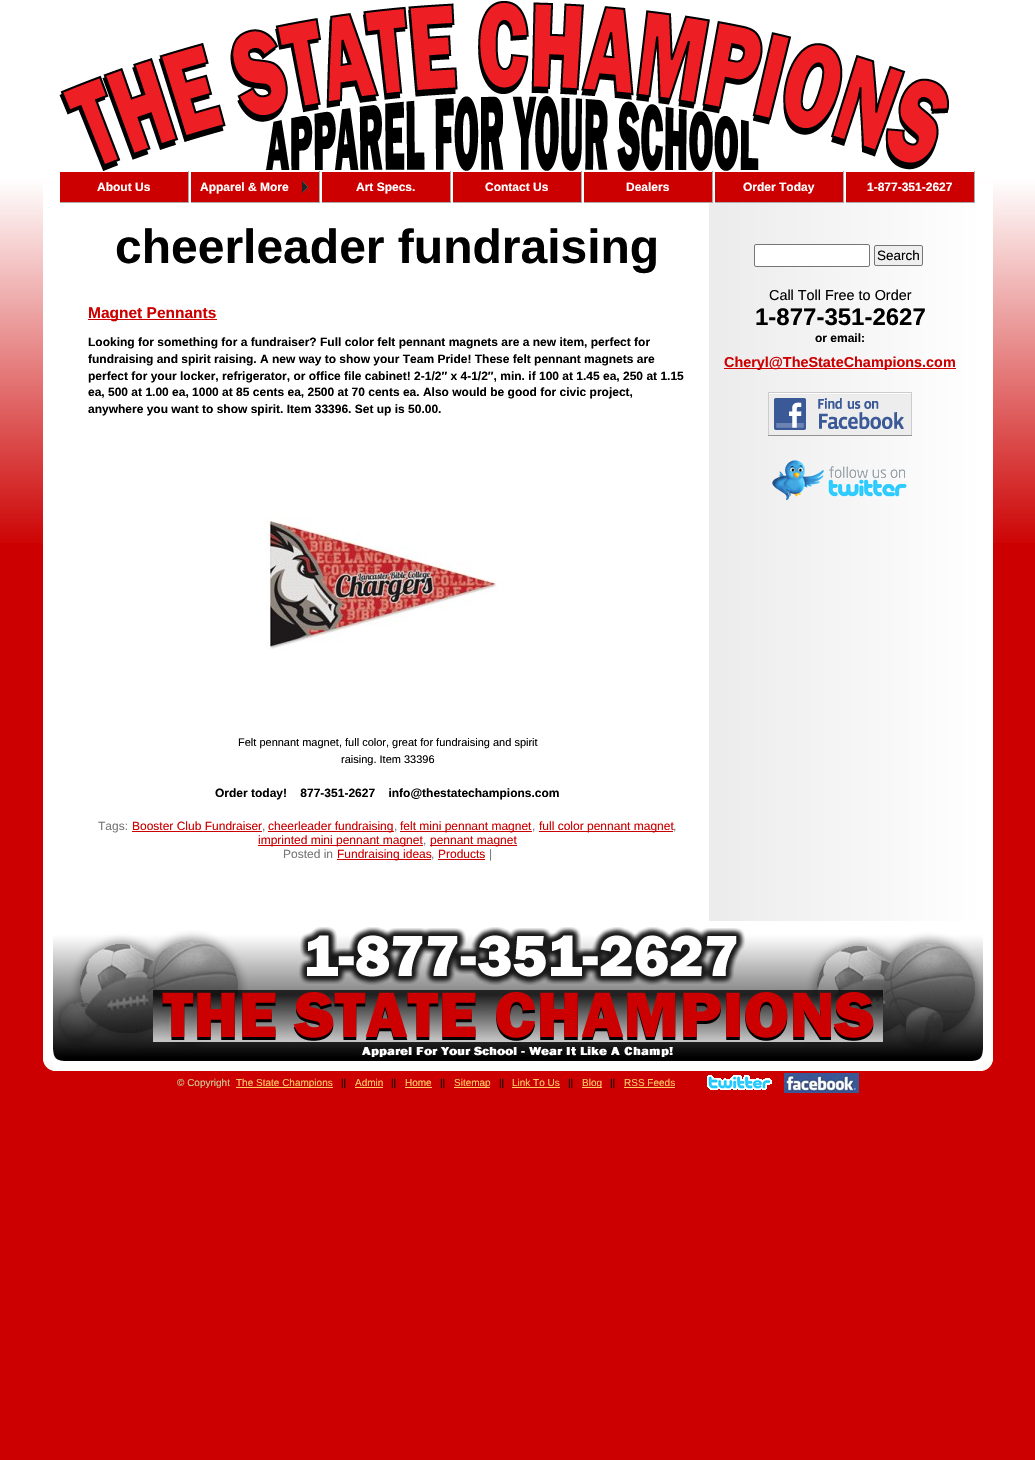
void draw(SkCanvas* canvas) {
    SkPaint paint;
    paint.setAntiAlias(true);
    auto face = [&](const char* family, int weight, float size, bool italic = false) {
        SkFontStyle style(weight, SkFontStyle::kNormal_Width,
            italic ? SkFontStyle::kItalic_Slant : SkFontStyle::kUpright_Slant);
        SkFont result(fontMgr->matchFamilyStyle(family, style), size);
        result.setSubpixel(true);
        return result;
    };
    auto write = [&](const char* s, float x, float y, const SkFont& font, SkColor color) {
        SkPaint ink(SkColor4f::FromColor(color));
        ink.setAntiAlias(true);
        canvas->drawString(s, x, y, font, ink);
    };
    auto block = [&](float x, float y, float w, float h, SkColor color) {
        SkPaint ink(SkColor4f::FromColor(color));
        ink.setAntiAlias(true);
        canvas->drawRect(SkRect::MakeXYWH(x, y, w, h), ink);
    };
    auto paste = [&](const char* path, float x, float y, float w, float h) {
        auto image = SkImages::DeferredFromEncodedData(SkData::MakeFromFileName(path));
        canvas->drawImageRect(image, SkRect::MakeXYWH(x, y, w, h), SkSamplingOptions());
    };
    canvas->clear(SkColorSetRGB(204, 0, 0));
    paste("pic1.png", 0, 0, 1035, 543);
    paste("pic2.png", 59, 1, 890, 170);
    block(43, 183, 950, 8, SK_ColorWHITE);
    paste("pic4.png", 43, 191, 950, 730);
    block(60, 172, 128, 30, SkColorSetRGB(204, 0, 0));
    block(188, 171, 1, 32, SkColorSetRGB(170, 170, 170));
    block(59, 202, 130, 1, SkColorSetRGB(170, 170, 170));
    block(59, 182, 1, 21, SK_ColorWHITE);
    auto kFont1 = face("Liberation Sans", 700, 12);
    write("About Us", 97, 191, kFont1, SK_ColorWHITE);
    block(191, 172, 128, 30, SkColorSetRGB(204, 0, 0));
    block(319, 171, 1, 32, SkColorSetRGB(170, 170, 170));
    block(190, 202, 130, 1, SkColorSetRGB(170, 170, 170));
    block(190, 182, 1, 21, SK_ColorWHITE);
    write("Apparel & More", 200, 191, kFont1, SK_ColorWHITE);
    paste("pic3.png", 302, 181, 6, 12);
    block(322, 172, 128, 30, SkColorSetRGB(204, 0, 0));
    block(450, 171, 1, 32, SkColorSetRGB(170, 170, 170));
    block(321, 202, 130, 1, SkColorSetRGB(170, 170, 170));
    block(321, 182, 1, 21, SK_ColorWHITE);
    write("Art Specs.", 356, 191, kFont1, SK_ColorWHITE);
    block(453, 172, 128, 30, SkColorSetRGB(204, 0, 0));
    block(581, 171, 1, 32, SkColorSetRGB(170, 170, 170));
    block(452, 202, 130, 1, SkColorSetRGB(170, 170, 170));
    block(452, 182, 1, 21, SK_ColorWHITE);
    write("Contact Us", 485, 191, kFont1, SK_ColorWHITE);
    block(584, 172, 128, 30, SkColorSetRGB(204, 0, 0));
    block(712, 171, 1, 32, SkColorSetRGB(170, 170, 170));
    block(583, 202, 130, 1, SkColorSetRGB(170, 170, 170));
    block(583, 182, 1, 21, SK_ColorWHITE);
    write("Dealers", 626, 191, kFont1, SK_ColorWHITE);
    block(715, 172, 128, 30, SkColorSetRGB(204, 0, 0));
    block(843, 171, 1, 32, SkColorSetRGB(170, 170, 170));
    block(714, 202, 130, 1, SkColorSetRGB(170, 170, 170));
    block(714, 182, 1, 21, SK_ColorWHITE);
    write("Order Today", 743, 191, kFont1, SK_ColorWHITE);
    block(846, 172, 128, 30, SkColorSetRGB(204, 0, 0));
    block(974, 171, 1, 32, SkColorSetRGB(170, 170, 170));
    block(845, 202, 130, 1, SkColorSetRGB(170, 170, 170));
    block(845, 182, 1, 21, SK_ColorWHITE);
    write("1-877-351-2627", 867, 191, kFont1, SK_ColorWHITE);
    auto kFont2 = face("Liberation Sans", 700, 48);
    write("cheerleader fundraising", 115, 263, kFont2, SK_ColorBLACK);
    block(88, 319, 129, 1, SkColorSetRGB(204, 0, 0));
    auto kFont3 = face("Liberation Sans", 700, 15.5f);
    write("Magnet Pennants", 88, 318, kFont3, SkColorSetRGB(204, 0, 0));
    write("Looking for something for a fundraiser? Full color felt pennant magnets are a new item, perfect for", 88, 346, kFont1, SK_ColorBLACK);
    write("fundraising and spirit raising. A new way to show your Team Pride! These felt pennant magnets are", 88, 363, kFont1, SK_ColorBLACK);
    write("perfect for your locker, refrigerator, or office file cabinet! 2-1/2″ x 4-1/2″, min. if 100 at 1.45 ea, 250 at 1.15", 88, 380, kFont1, SK_ColorBLACK);
    write("ea, 500 at 1.00 ea, 1000 at 85 cents ea, 2500 at 70 cents ea. Also would be good for civic project,", 88, 396, kFont1, SK_ColorBLACK);
    write("anywhere you want to show spirit. Item 33396. Set up is 50.00.", 88, 413, kFont1, SK_ColorBLACK);
    paste("pic5.png", 265, 514, 239, 135);
    auto kFont4 = face("Liberation Sans", 400, 11);
    write("Felt pennant magnet, full color, great for fundraising and spirit", 238, 746, kFont4, SK_ColorBLACK);
    write("raising. Item 33396", 341, 763, kFont4, SK_ColorBLACK);
    write("Order today!    877-351-2627    info@thestatechampions.com", 215, 797, kFont1, SK_ColorBLACK);
    auto kFont5 = face("Liberation Sans", 400, 12);
    write("Tags:", 98, 830, kFont5, SkColorSetRGB(119, 119, 119));
    write("Booster Club Fundraiser", 132, 830, kFont5, SkColorSetRGB(204, 0, 0));
    block(132, 831, 130, 1, SkColorSetRGB(204, 0, 0));
    write(",", 262, 830, kFont5, SkColorSetRGB(119, 119, 119));
    block(268, 831, 126, 1, SkColorSetRGB(204, 0, 0));
    write("cheerleader fundraising", 268, 830, kFont5, SkColorSetRGB(204, 0, 0));
    write(",", 394, 830, kFont5, SkColorSetRGB(119, 119, 119));
    block(400, 831, 132, 1, SkColorSetRGB(204, 0, 0));
    write("felt mini pennant magnet", 400, 830, kFont5, SkColorSetRGB(204, 0, 0));
    write(",", 532, 830, kFont5, SkColorSetRGB(119, 119, 119));
    block(539, 831, 134, 1, SkColorSetRGB(204, 0, 0));
    write("full color pennant magnet", 539, 830, kFont5, SkColorSetRGB(204, 0, 0));
    write(",", 673, 830, kFont5, SkColorSetRGB(119, 119, 119));
    block(258, 845, 165, 1, SkColorSetRGB(204, 0, 0));
    write("imprinted mini pennant magnet", 258, 844, kFont5, SkColorSetRGB(204, 0, 0));
    write(",", 423, 844, kFont5, SkColorSetRGB(119, 119, 119));
    block(430, 845, 87, 1, SkColorSetRGB(204, 0, 0));
    write("pennant magnet", 430, 844, kFont5, SkColorSetRGB(204, 0, 0));
    write("Posted in", 283, 858, kFont5, SkColorSetRGB(119, 119, 119));
    block(337, 859, 94, 1, SkColorSetRGB(204, 0, 0));
    write("Fundraising ideas", 337, 858, kFont5, SkColorSetRGB(204, 0, 0));
    write(",", 431, 858, kFont5, SkColorSetRGB(119, 119, 119));
    write("Products", 438, 858, kFont5, SkColorSetRGB(204, 0, 0));
    block(438, 859, 47, 1, SkColorSetRGB(204, 0, 0));
    write("|", 489, 858, kFont5, SkColorSetRGB(119, 119, 119));
    paint.setColor(SK_ColorWHITE);
    canvas->drawRoundRect(SkRect::MakeXYWH(754.5f, 244.5f, 115, 22), 1.5f, 1.5f, paint);
    paint.setStyle(SkPaint::kStroke_Style);
    paint.setStrokeWidth(1);
    paint.setColor(SkColorSetRGB(118, 118, 118));
    canvas->drawRoundRect(SkRect::MakeXYWH(754.5f, 244.5f, 115, 22), 1.5f, 1.5f, paint);
    paint.setStyle(SkPaint::kFill_Style);
    paint.setColor(SkColorSetRGB(239, 239, 239));
    canvas->drawRoundRect(SkRect::MakeXYWH(874.5f, 245.5f, 48, 20), 1.5f, 1.5f, paint);
    paint.setStyle(SkPaint::kStroke_Style);
    paint.setColor(SkColorSetRGB(118, 118, 118));
    canvas->drawRoundRect(SkRect::MakeXYWH(874.5f, 245.5f, 48, 20), 1.5f, 1.5f, paint);
    auto kFont6 = face("Liberation Sans", 400, 13.5f);
    write("Search", 877, 260, kFont6, SK_ColorBLACK);
    auto kFont7 = face("Liberation Sans", 400, 14.4f);
    write("Call Toll Free to Order", 769, 300, kFont7, SK_ColorBLACK);
    auto kFont8 = face("Liberation Sans", 700, 24);
    write("1-877-351-2627", 755, 325, kFont8, SK_ColorBLACK);
    write("or email:", 815, 342, kFont1, SK_ColorBLACK);
    block(724, 368, 232, 1, SkColorSetRGB(204, 0, 0));
    auto kFont9 = face("Liberation Sans", 700, 14.4f);
    write("Cheryl@TheStateChampions.com", 724, 367, kFont9, SkColorSetRGB(204, 0, 0));
    paste("pic6.png", 768, 392, 144, 44);
    paste("pic7.png", 772, 460, 135, 40);
    block(43, 921, 950, 140, SK_ColorWHITE);
    paste("pic8.png", 52, 927, 932, 134);
    paste("pic9.png", 43, 1061, 950, 10);
    auto kFont10 = face("Liberation Sans", 400, 10);
    write("© Copyright", 177, 1086, kFont10, SkColorSetRGB(204, 204, 153));
    block(236, 1087, 97, 1, SkColorSetRGB(255, 204, 102));
    write("The State Champions", 236, 1086, kFont10, SkColorSetRGB(255, 204, 102));
    write("||", 341, 1086, kFont10, SK_ColorBLACK);
    write("Admin", 355, 1086, kFont10, SkColorSetRGB(255, 204, 102));
    block(355, 1087, 28, 1, SkColorSetRGB(255, 204, 102));
    write("||", 391, 1086, kFont10, SK_ColorBLACK);
    write("Home", 405, 1086, kFont10, SkColorSetRGB(255, 204, 102));
    block(405, 1087, 27, 1, SkColorSetRGB(255, 204, 102));
    write("||", 440, 1086, kFont10, SK_ColorBLACK);
    block(454, 1087, 36, 1, SkColorSetRGB(255, 204, 102));
    write("Sitemap", 454, 1086, kFont10, SkColorSetRGB(255, 204, 102));
    write("||", 499, 1086, kFont10, SK_ColorBLACK);
    write("Link To Us", 512, 1086, kFont10, SkColorSetRGB(255, 204, 102));
    block(512, 1087, 48, 1, SkColorSetRGB(255, 204, 102));
    write("||", 568, 1086, kFont10, SK_ColorBLACK);
    block(582, 1087, 20, 1, SkColorSetRGB(255, 204, 102));
    write("Blog", 582, 1086, kFont10, SkColorSetRGB(255, 204, 102));
    write("||", 610, 1086, kFont10, SK_ColorBLACK);
    write("RSS Feeds", 624, 1086, kFont10, SkColorSetRGB(255, 204, 102));
    block(624, 1087, 51, 1, SkColorSetRGB(255, 204, 102));
    paste("pic10.png", 707, 1075, 65, 15);
    paste("pic11.png", 784, 1073, 75, 20);
}
